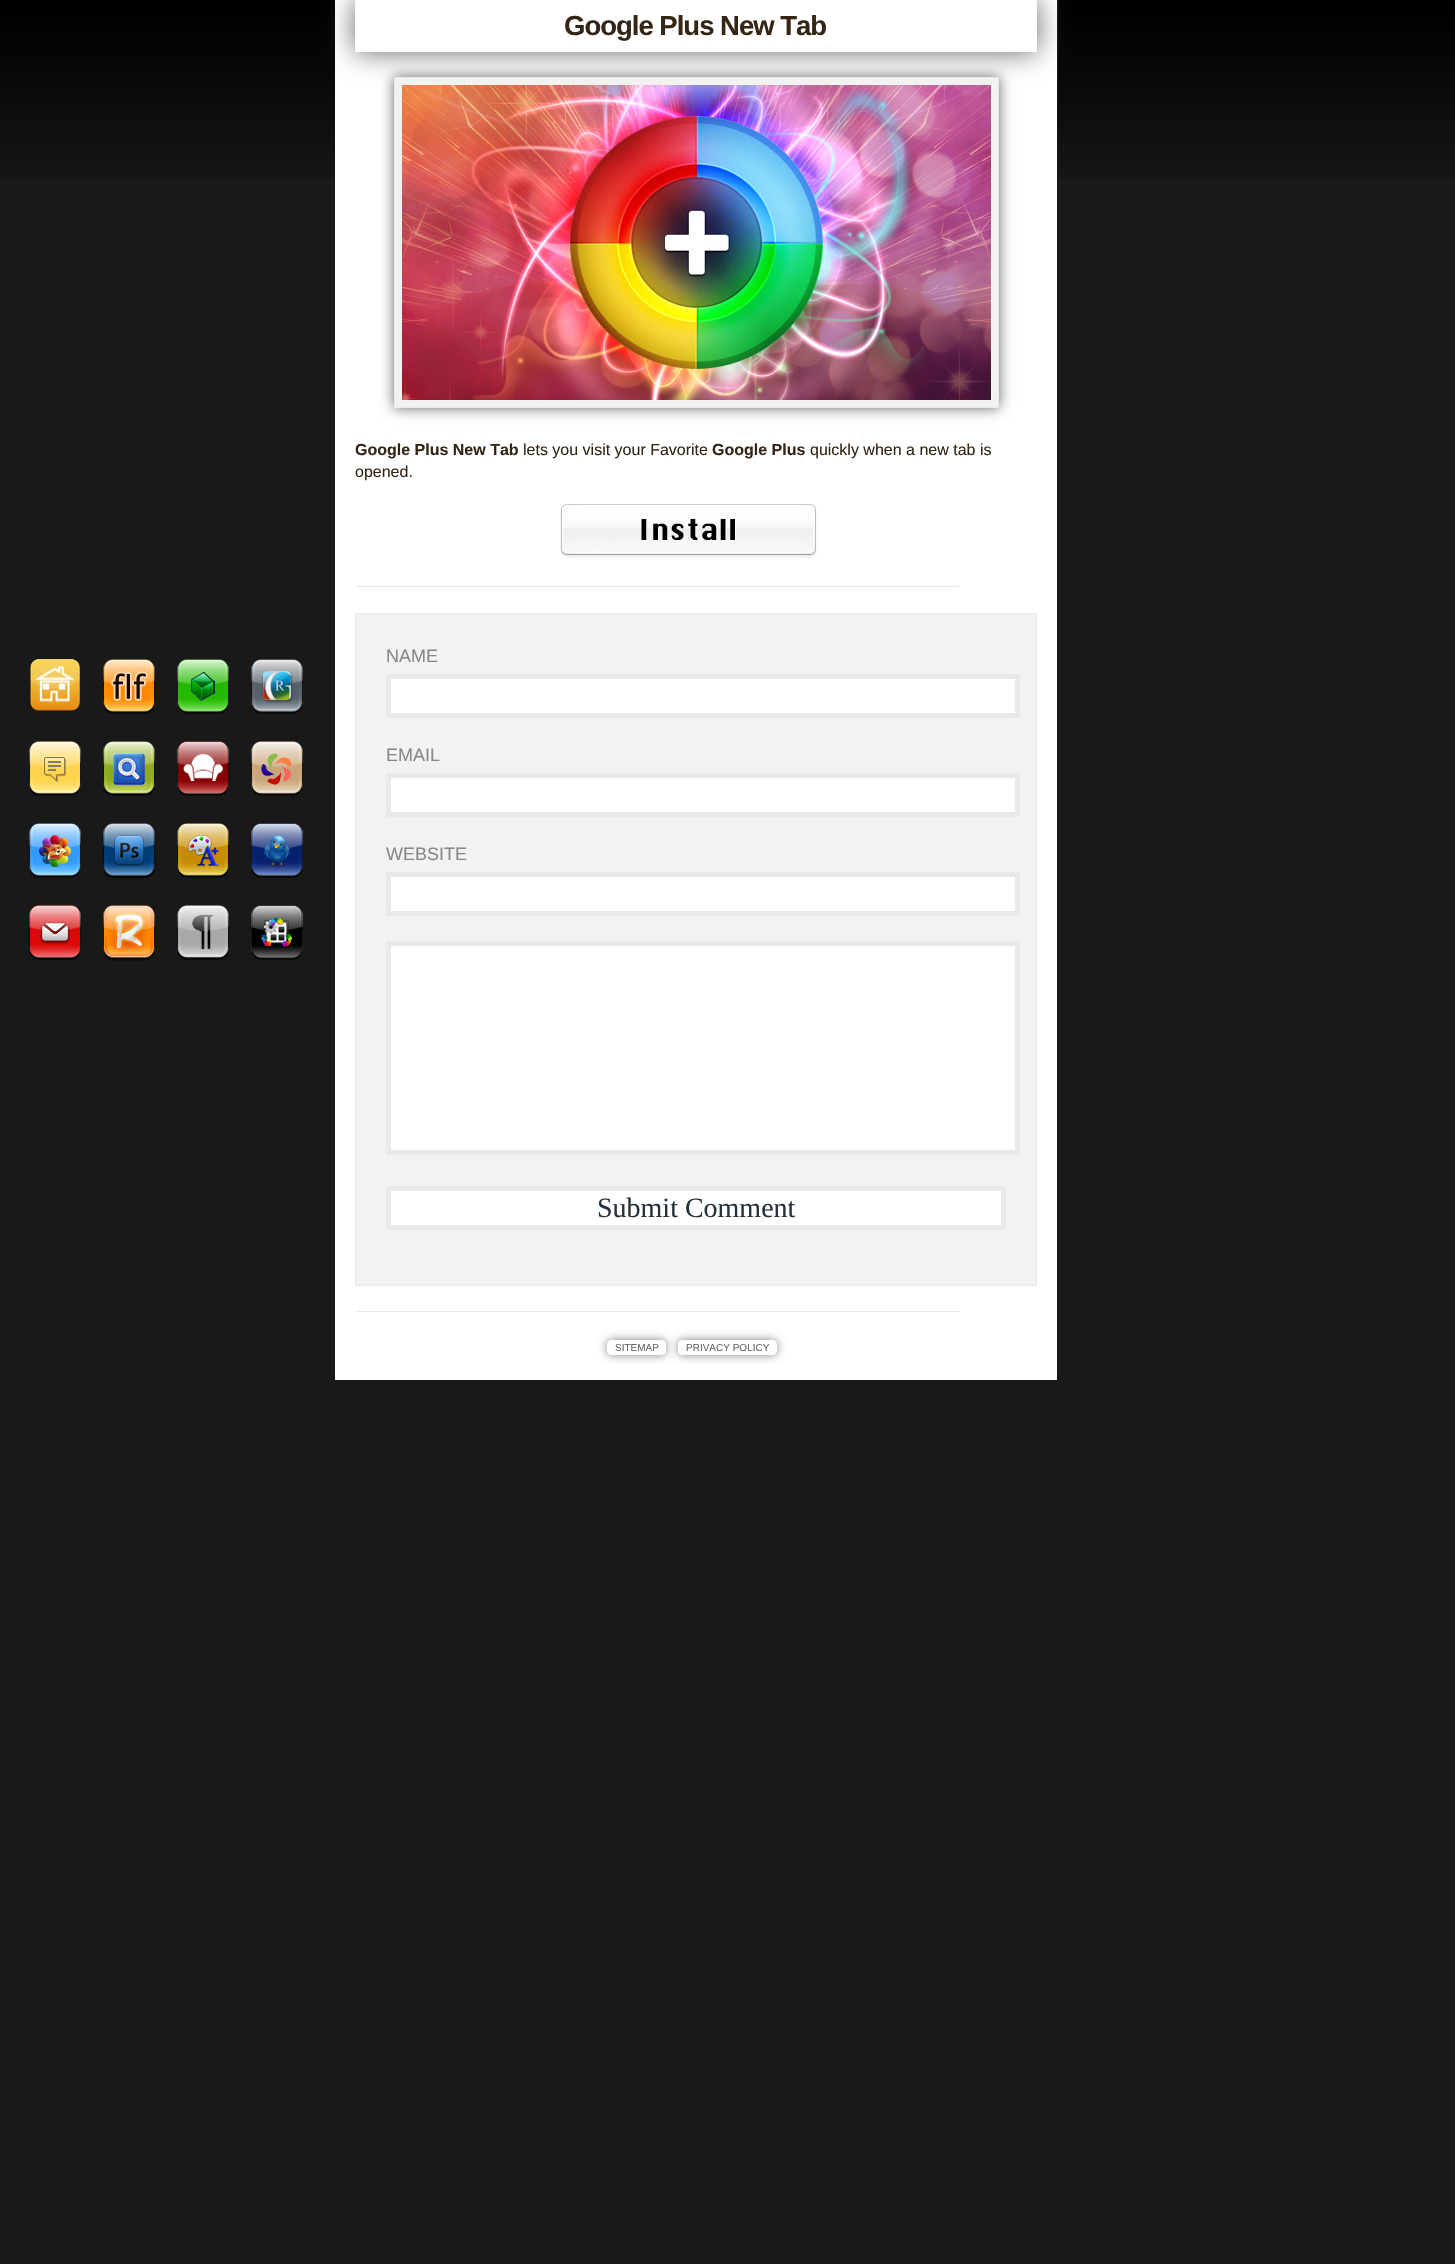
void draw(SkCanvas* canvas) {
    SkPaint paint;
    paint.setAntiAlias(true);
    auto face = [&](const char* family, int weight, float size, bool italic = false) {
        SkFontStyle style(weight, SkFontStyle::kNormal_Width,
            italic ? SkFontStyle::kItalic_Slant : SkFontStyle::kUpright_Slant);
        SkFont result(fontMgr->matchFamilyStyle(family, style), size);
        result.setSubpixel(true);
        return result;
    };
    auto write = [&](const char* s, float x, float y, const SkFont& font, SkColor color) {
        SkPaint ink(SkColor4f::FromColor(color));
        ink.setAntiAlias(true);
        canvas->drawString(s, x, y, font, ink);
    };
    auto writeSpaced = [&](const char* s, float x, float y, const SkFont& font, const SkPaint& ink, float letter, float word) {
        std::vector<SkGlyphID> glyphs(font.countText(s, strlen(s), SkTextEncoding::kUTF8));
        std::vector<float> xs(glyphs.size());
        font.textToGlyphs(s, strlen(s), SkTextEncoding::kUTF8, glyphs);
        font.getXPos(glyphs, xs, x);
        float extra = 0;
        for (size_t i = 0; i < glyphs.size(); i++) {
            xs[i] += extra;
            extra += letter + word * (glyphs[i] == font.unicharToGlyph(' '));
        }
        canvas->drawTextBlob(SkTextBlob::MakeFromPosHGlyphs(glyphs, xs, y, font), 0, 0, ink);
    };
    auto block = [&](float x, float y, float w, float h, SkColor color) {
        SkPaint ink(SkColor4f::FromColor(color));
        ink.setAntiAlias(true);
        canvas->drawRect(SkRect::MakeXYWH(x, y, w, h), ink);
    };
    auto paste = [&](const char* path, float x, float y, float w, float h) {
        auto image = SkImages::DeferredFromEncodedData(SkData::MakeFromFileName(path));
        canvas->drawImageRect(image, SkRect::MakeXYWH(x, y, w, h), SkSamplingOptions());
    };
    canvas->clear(SkColorSetRGB(25, 25, 25));
    paste("pic1.png", 1058, 0, 397, 178);
    paste("pic2.png", 0, 0, 335, 178);
    paste("pic3.png", 30, 659, 50, 52);
    paste("pic4.png", 103, 659, 52, 55);
    paste("pic5.png", 177, 659, 52, 55);
    paste("pic6.png", 251, 659, 52, 55);
    paste("pic7.png", 29, 741, 52, 55);
    paste("pic8.png", 103, 741, 52, 55);
    paste("pic9.png", 177, 741, 52, 55);
    paste("pic10.png", 251, 741, 52, 55);
    paste("pic11.png", 29, 823, 52, 55);
    paste("pic12.png", 102, 823, 54, 56);
    paste("pic13.png", 177, 823, 52, 55);
    paste("pic14.png", 251, 823, 52, 55);
    paste("pic15.png", 28, 905, 54, 56);
    paste("pic16.png", 103, 905, 52, 56);
    paste("pic17.png", 177, 905, 52, 55);
    paste("pic18.png", 251, 905, 52, 55);
    block(335, 0, 722, 1380, SK_ColorWHITE);
    canvas->save();
    canvas->clipPath(SkPathBuilder(SkPathFillType::kEvenOdd).moveTo(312, 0).lineTo(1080, 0).lineTo(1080, 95).lineTo(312, 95).close().moveTo(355, 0).lineTo(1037, 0).lineTo(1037, 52).lineTo(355, 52).close().detach(), true);
    paint.setColor(SkColorSetRGB(102, 102, 102));
    paint.setMaskFilter(SkMaskFilter::MakeBlur(kNormal_SkBlurStyle, 14));
    canvas->drawRect(SkRect::MakeXYWH(355, 0, 682, 52), paint);
    paint.setMaskFilter(nullptr);
    canvas->restore();
    auto kFont1 = face("Liberation Sans", 700, 27.5f);
    paint.setColor(SkColorSetRGB(53, 37, 21));
    writeSpaced("Google Plus New Tab", 564, 35, kFont1, paint, -1, 0);
    paint.setColor(SkColorSetRGB(102, 102, 102));
    paint.setMaskFilter(SkMaskFilter::MakeBlur(kNormal_SkBlurStyle, 6.5f));
    canvas->drawRect(SkRect::MakeXYWH(394, 77, 605, 331), paint);
    paint.setMaskFilter(nullptr);
    paint.setColor(SkColorSetRGB(242, 242, 241));
    canvas->drawRect(SkRect::MakeXYWH(394.5f, 77.5f, 604, 330), paint);
    paint.setStyle(SkPaint::kStroke_Style);
    paint.setStrokeWidth(1);
    paint.setColor(SkColorSetRGB(233, 233, 233));
    canvas->drawRect(SkRect::MakeXYWH(394.5f, 77.5f, 604, 330), paint);
    paste("pic19.png", 402, 85, 589, 315);
    auto kFont2 = face("Liberation Sans", 700, 16);
    write("Google Plus New Tab", 355, 455, kFont2, SkColorSetRGB(53, 37, 21));
    auto kFont3 = face("Liberation Sans", 400, 16);
    write("lets you visit your Favorite", 523, 455, kFont3, SkColorSetRGB(53, 37, 21));
    write("Google Plus", 712, 455, kFont2, SkColorSetRGB(53, 37, 21));
    write("quickly when a new tab is", 810, 455, kFont3, SkColorSetRGB(53, 37, 21));
    write("opened.", 355, 477, kFont3, SkColorSetRGB(53, 37, 21));
    paste("pic20.png", 560, 504, 257, 54);
    paste("pic21.png", 355, 586, 605, 1);
    paint.setStyle(SkPaint::kFill_Style);
    paint.setColor(SkColorSetRGB(242, 242, 242));
    canvas->drawRect(SkRect::MakeXYWH(355.5f, 613.5f, 681, 672), paint);
    paint.setStyle(SkPaint::kStroke_Style);
    paint.setColor(SkColorSetRGB(233, 233, 233));
    canvas->drawRect(SkRect::MakeXYWH(355.5f, 613.5f, 681, 672), paint);
    auto kFont4 = face("Liberation Sans", 400, 18);
    write("NAME", 386, 662, kFont4, SkColorSetRGB(136, 136, 136));
    paint.setStyle(SkPaint::kFill_Style);
    paint.setColor(SK_ColorWHITE);
    canvas->drawRect(SkRect::MakeXYWH(388.5f, 676.5f, 629, 39), paint);
    paint.setStyle(SkPaint::kStroke_Style);
    paint.setStrokeWidth(5);
    paint.setColor(SkColorSetRGB(233, 233, 233));
    canvas->drawRect(SkRect::MakeXYWH(388.5f, 676.5f, 629, 39), paint);
    write("EMAIL", 386, 761, kFont4, SkColorSetRGB(136, 136, 136));
    paint.setStyle(SkPaint::kFill_Style);
    paint.setColor(SK_ColorWHITE);
    canvas->drawRect(SkRect::MakeXYWH(388.5f, 775.5f, 629, 39), paint);
    paint.setStyle(SkPaint::kStroke_Style);
    paint.setColor(SkColorSetRGB(233, 233, 233));
    canvas->drawRect(SkRect::MakeXYWH(388.5f, 775.5f, 629, 39), paint);
    write("WEBSITE", 386, 860, kFont4, SkColorSetRGB(136, 136, 136));
    paint.setStyle(SkPaint::kFill_Style);
    paint.setColor(SK_ColorWHITE);
    canvas->drawRect(SkRect::MakeXYWH(388.5f, 874.5f, 629, 39), paint);
    paint.setStyle(SkPaint::kStroke_Style);
    paint.setColor(SkColorSetRGB(233, 233, 233));
    canvas->drawRect(SkRect::MakeXYWH(388.5f, 874.5f, 629, 39), paint);
    paint.setStyle(SkPaint::kFill_Style);
    paint.setColor(SK_ColorWHITE);
    canvas->drawRect(SkRect::MakeXYWH(388.5f, 943.5f, 629, 209), paint);
    paint.setStyle(SkPaint::kStroke_Style);
    paint.setColor(SkColorSetRGB(233, 233, 233));
    canvas->drawRect(SkRect::MakeXYWH(388.5f, 943.5f, 629, 209), paint);
    paint.setStyle(SkPaint::kFill_Style);
    paint.setColor(SK_ColorWHITE);
    canvas->drawRect(SkRect::MakeXYWH(388.5f, 1188.5f, 615, 39), paint);
    paint.setStyle(SkPaint::kStroke_Style);
    paint.setColor(SkColorSetRGB(233, 233, 233));
    canvas->drawRect(SkRect::MakeXYWH(388.5f, 1188.5f, 615, 39), paint);
    auto kFont5 = face("Liberation Serif", 400, 28);
    write("Submit Comment", 597, 1217, kFont5, SkColorSetRGB(37, 49, 60));
    paste("pic21.png", 355, 1311, 605, 1);
    canvas->save();
    canvas->clipPath(SkPathBuilder(SkPathFillType::kEvenOdd).moveTo(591, 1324).lineTo(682, 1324).lineTo(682, 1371).lineTo(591, 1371).close().moveTo(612, 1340).lineTo(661, 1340).cubicTo(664, 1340, 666, 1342, 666, 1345).lineTo(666, 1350).cubicTo(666, 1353, 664, 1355, 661, 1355).lineTo(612, 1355).cubicTo(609, 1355, 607, 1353, 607, 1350).lineTo(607, 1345).cubicTo(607, 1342, 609, 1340, 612, 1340).close().detach(), true);
    paint.setStyle(SkPaint::kFill_Style);
    paint.setColor(SkColorSetRGB(128, 128, 128));
    paint.setMaskFilter(SkMaskFilter::MakeBlur(kNormal_SkBlurStyle, 5));
    canvas->drawRoundRect(SkRect::MakeXYWH(607, 1340, 59, 15), 5, 5, paint);
    paint.setMaskFilter(nullptr);
    canvas->restore();
    auto kFont6 = face("Liberation Sans", 400, 10);
    write("SITEMAP", 615, 1351, kFont6, SkColorSetRGB(102, 102, 102));
    canvas->save();
    canvas->clipPath(SkPathBuilder(SkPathFillType::kEvenOdd).moveTo(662, 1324).lineTo(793, 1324).lineTo(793, 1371).lineTo(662, 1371).close().moveTo(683, 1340).lineTo(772, 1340).cubicTo(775, 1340, 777, 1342, 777, 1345).lineTo(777, 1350).cubicTo(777, 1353, 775, 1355, 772, 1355).lineTo(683, 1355).cubicTo(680, 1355, 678, 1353, 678, 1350).lineTo(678, 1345).cubicTo(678, 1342, 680, 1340, 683, 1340).close().detach(), true);
    paint.setMaskFilter(SkMaskFilter::MakeBlur(kNormal_SkBlurStyle, 5));
    canvas->drawRoundRect(SkRect::MakeXYWH(678, 1340, 99, 15), 5, 5, paint);
    paint.setMaskFilter(nullptr);
    canvas->restore();
    write("PRIVACY POLICY", 686, 1351, kFont6, SkColorSetRGB(102, 102, 102));
}
